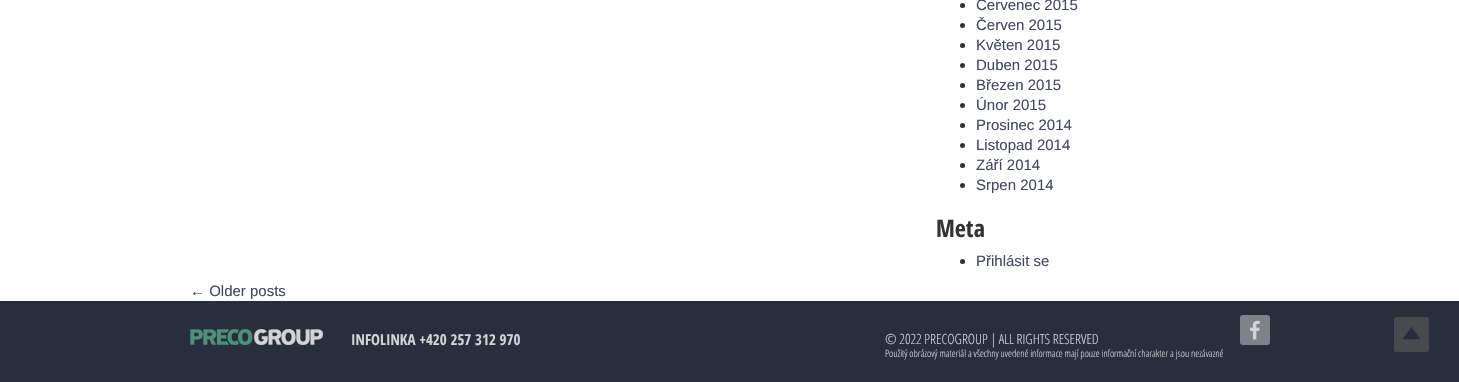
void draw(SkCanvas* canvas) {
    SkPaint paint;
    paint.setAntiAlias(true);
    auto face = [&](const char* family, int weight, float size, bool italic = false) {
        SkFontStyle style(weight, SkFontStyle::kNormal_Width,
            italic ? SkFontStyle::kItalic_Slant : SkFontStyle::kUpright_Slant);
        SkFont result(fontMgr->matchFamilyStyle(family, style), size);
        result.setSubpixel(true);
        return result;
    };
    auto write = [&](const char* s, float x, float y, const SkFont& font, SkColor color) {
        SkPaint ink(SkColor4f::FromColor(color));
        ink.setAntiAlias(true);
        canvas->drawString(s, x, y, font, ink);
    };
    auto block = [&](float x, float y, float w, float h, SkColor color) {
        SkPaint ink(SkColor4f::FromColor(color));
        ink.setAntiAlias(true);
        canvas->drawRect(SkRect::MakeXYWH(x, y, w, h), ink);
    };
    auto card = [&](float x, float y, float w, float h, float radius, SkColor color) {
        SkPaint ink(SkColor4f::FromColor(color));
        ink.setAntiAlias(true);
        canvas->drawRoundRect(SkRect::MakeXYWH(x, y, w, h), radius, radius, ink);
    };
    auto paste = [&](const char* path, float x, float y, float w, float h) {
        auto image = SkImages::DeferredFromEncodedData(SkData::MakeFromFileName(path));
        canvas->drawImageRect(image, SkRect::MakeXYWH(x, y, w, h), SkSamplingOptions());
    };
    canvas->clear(SK_ColorWHITE);
    paint.setColor(SkColorSetRGB(51, 51, 51));
    canvas->drawCircle(962.5f, 5.5f, 2.5f, paint);
    auto kFont1 = face("Liberation Sans", 400, 15);
    write("Červenec 2015", 976, 10, kFont1, SkColorSetRGB(66, 73, 91));
    canvas->drawCircle(962.5f, 25.5f, 2.5f, paint);
    write("Červen 2015", 976, 30, kFont1, SkColorSetRGB(66, 73, 91));
    canvas->drawCircle(962.5f, 45.5f, 2.5f, paint);
    write("Květen 2015", 976, 50, kFont1, SkColorSetRGB(66, 73, 91));
    canvas->drawCircle(962.5f, 65.5f, 2.5f, paint);
    write("Duben 2015", 976, 70, kFont1, SkColorSetRGB(66, 73, 91));
    canvas->drawCircle(962.5f, 85.5f, 2.5f, paint);
    write("Březen 2015", 976, 90, kFont1, SkColorSetRGB(66, 73, 91));
    canvas->drawCircle(962.5f, 105.5f, 2.5f, paint);
    write("Únor 2015", 976, 110, kFont1, SkColorSetRGB(66, 73, 91));
    canvas->drawCircle(962.5f, 125.5f, 2.5f, paint);
    write("Prosinec 2014", 976, 130, kFont1, SkColorSetRGB(66, 73, 91));
    canvas->drawCircle(962.5f, 145.5f, 2.5f, paint);
    write("Listopad 2014", 976, 150, kFont1, SkColorSetRGB(66, 73, 91));
    canvas->drawCircle(962.5f, 165.5f, 2.5f, paint);
    write("Září 2014", 976, 170, kFont1, SkColorSetRGB(66, 73, 91));
    canvas->drawCircle(962.5f, 185.5f, 2.5f, paint);
    write("Srpen 2014", 976, 190, kFont1, SkColorSetRGB(66, 73, 91));
    auto kFont2 = face("Open Sans Condensed", 700, 24);
    write("Meta", 936, 237, kFont2, SkColorSetRGB(51, 51, 51));
    canvas->drawCircle(962.5f, 261.5f, 2.5f, paint);
    write("Přihlásit se", 976, 266, kFont1, SkColorSetRGB(66, 73, 91));
    write("← Older posts", 190, 296, kFont1, SkColorSetRGB(66, 73, 91));
    block(0, 301, 1459, 81, SkColorSetRGB(40, 46, 60));
    paste("pic1.png", 190, 329, 133, 16);
    auto kFont3 = face("Open Sans Condensed", 700, 15);
    write("INFOLINKA +420 257 312 970", 351, 345, kFont3, SkColorSetRGB(209, 211, 212));
    auto kFont4 = face("Open Sans Condensed", 300, 14);
    write("© 2022 PRECOGROUP | ALL RIGHTS RESERVED", 885, 344, kFont4, SkColorSetRGB(209, 211, 212));
    auto kFont5 = face("Open Sans Condensed", 300, 10);
    write("Použitý obrázový materiál a všechny uvedené informace mají pouze informační charakter a jsou nezávazné", 885, 357, kFont5, SkColorSetRGB(209, 211, 212));
    card(1240, 315, 30, 30, 3, SkColorSetRGB(126, 130, 138));
    paste("pic2.png", 1250, 320, 10, 20);
    paste("pic3.png", 1394, 317, 35, 35);
}
